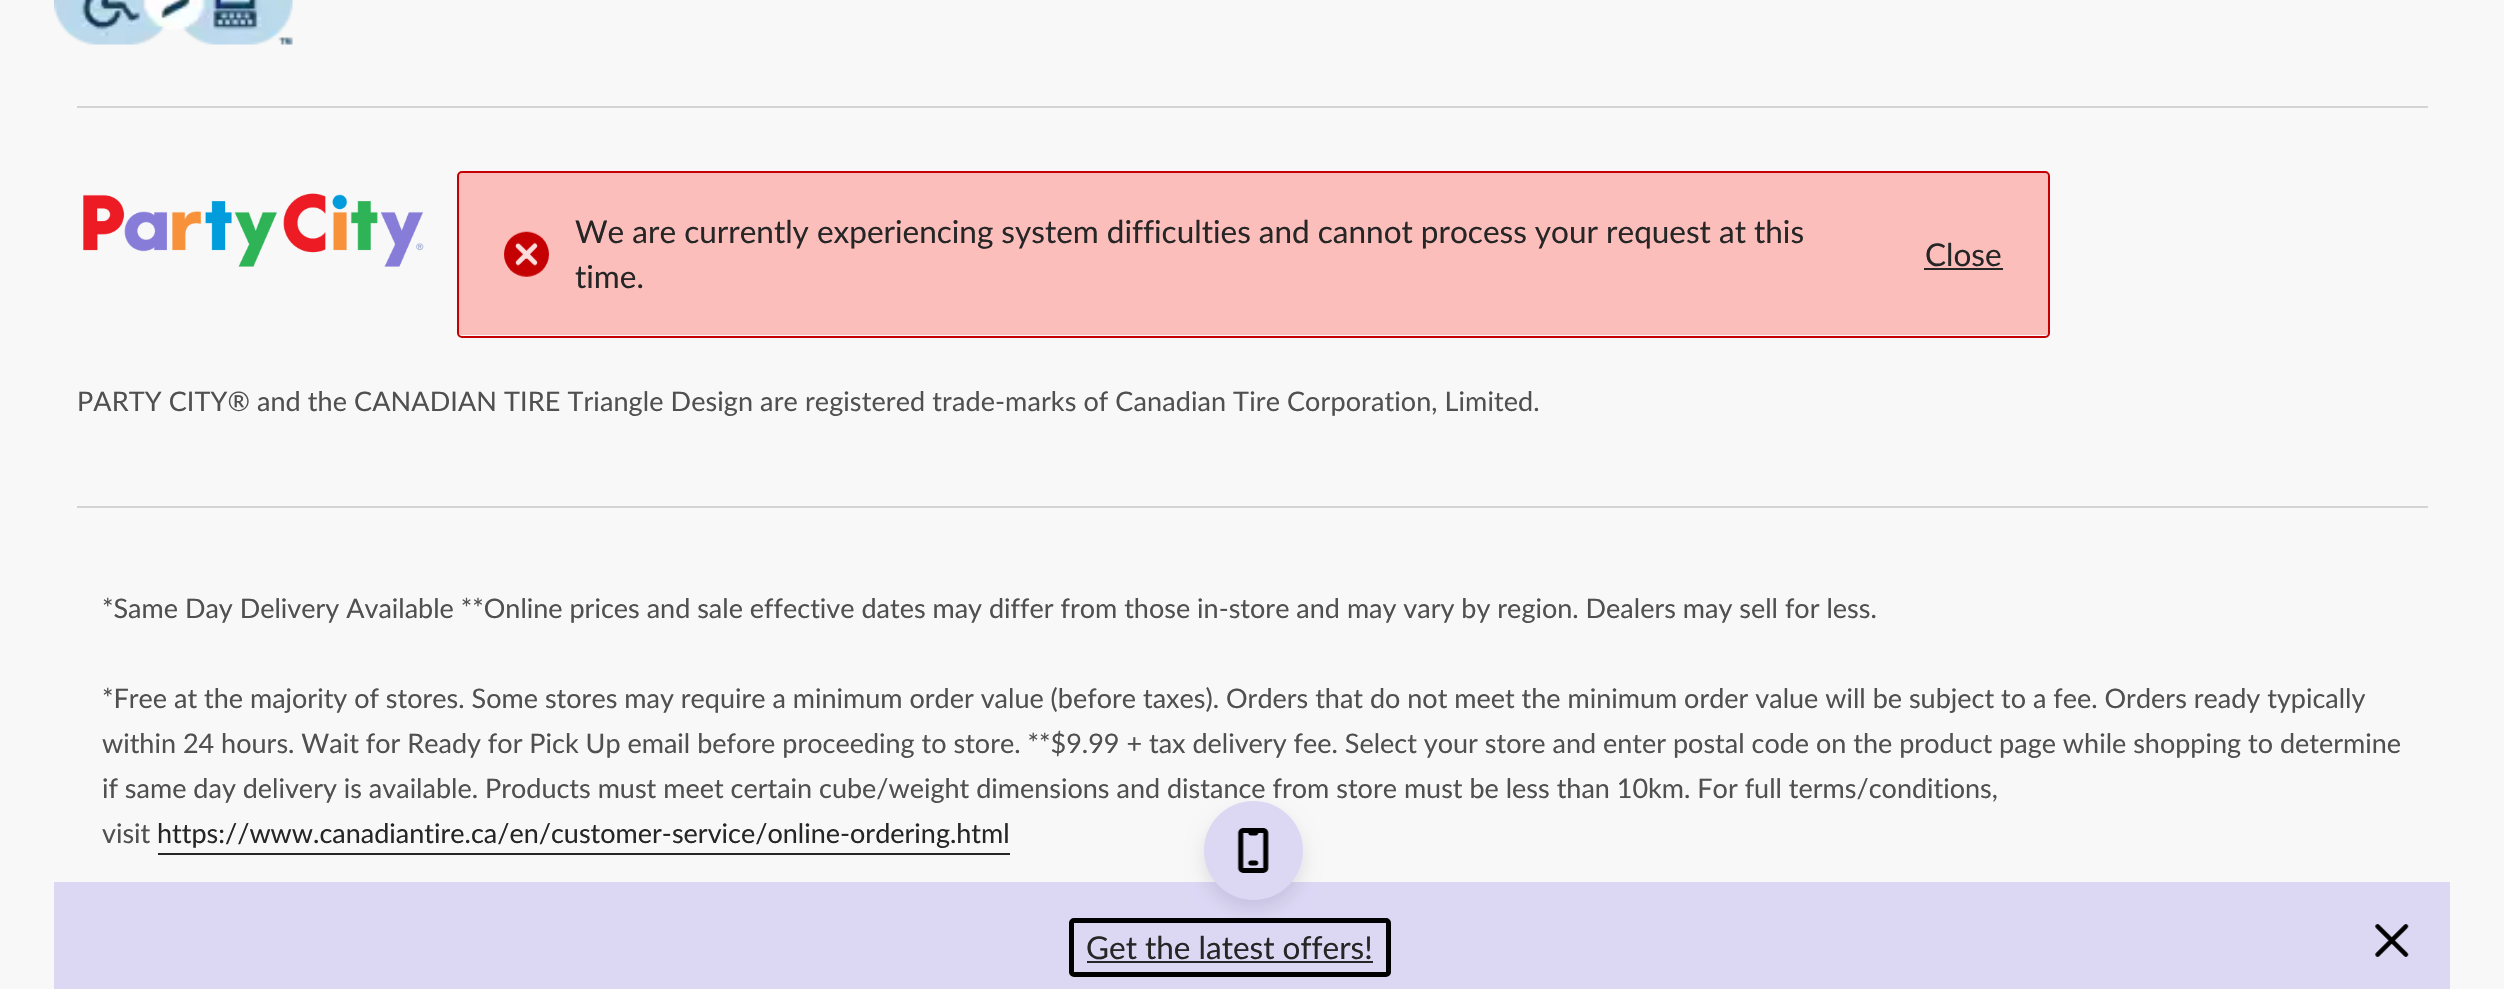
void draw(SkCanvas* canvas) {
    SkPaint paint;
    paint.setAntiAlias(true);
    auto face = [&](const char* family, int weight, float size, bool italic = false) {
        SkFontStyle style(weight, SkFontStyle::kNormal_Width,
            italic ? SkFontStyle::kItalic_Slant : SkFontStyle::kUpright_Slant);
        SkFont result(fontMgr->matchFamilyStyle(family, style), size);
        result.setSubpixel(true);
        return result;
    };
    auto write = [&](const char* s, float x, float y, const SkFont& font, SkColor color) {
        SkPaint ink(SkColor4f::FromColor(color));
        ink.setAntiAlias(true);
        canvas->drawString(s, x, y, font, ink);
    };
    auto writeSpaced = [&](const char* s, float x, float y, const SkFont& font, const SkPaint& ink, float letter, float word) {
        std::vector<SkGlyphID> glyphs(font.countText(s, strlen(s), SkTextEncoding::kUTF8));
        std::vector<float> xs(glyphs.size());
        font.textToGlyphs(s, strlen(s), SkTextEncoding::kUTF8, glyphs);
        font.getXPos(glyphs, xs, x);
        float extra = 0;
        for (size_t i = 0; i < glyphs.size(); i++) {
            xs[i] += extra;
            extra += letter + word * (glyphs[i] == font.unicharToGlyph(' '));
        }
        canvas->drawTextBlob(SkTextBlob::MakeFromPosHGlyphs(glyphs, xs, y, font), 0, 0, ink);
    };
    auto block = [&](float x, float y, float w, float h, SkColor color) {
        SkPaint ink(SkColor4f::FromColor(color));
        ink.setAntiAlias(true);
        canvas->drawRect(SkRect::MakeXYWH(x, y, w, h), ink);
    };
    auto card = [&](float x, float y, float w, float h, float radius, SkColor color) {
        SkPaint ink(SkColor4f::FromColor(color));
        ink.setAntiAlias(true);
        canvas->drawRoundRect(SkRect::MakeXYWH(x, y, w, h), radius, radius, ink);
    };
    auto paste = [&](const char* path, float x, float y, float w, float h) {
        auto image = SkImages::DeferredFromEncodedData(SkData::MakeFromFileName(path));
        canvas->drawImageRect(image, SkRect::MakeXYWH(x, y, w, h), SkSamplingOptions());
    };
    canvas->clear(SkColorSetRGB(248, 248, 248));
    card(459, 173, 1589, 162, 2, SkColorSetRGB(251, 190, 187));
    paint.setStyle(SkPaint::kStroke_Style);
    paint.setStrokeWidth(2);
    paint.setColor(SkColorSetRGB(197, 0, 3));
    canvas->drawRoundRect(SkRect::MakeXYWH(458, 172, 1591, 165), 4, 4, paint);
    paste("pic1.png", 504, 231, 45, 46);
    auto kFont1 = face("Lato", 400, 31.5f);
    write("We are currently experiencing system difficulties and cannot process your request at this", 575, 243, kFont1, SkColorSetRGB(38, 38, 38));
    write("time.", 575, 288, kFont1, SkColorSetRGB(38, 38, 38));
    write("Close", 1925, 266, kFont1, SkColorSetRGB(38, 38, 38));
    block(1924, 268, 79, 2, SkColorSetRGB(38, 38, 38));
    paste("pic2.png", 54, 0, 239, 45);
    block(77, 106, 2351, 2, SkColorSetRGB(212, 212, 212));
    paste("pic3.png", 83, 193, 341, 74);
    auto kFont2 = face("Lato", 400, 27);
    paint.setStyle(SkPaint::kFill_Style);
    paint.setColor(SkColorSetRGB(80, 80, 80));
    writeSpaced("PARTY CITY® and the CANADIAN TIRE Triangle Design are registered trade-marks of Canadian Tire Corporation, Limited.", 77, 411, kFont2, paint, 0.09f, 0);
    block(77, 506, 2351, 2, SkColorSetRGB(212, 212, 212));
    write("*Same Day Delivery Available **Online prices and sale effective dates may differ from those in-store and may vary by region. Dealers may sell for less.", 102, 618, kFont2, SkColorSetRGB(80, 80, 80));
    write("*Free at the majority of stores. Some stores may require a minimum order value (before taxes). Orders that do not meet the minimum order value will be subject to a fee. Orders ready typically", 102, 708, kFont2, SkColorSetRGB(80, 80, 80));
    write("within 24 hours. Wait for Ready for Pick Up email before proceeding to store. **$9.99 + tax delivery fee. Select your store and enter postal code on the product page while shopping to determine", 102, 753, kFont2, SkColorSetRGB(80, 80, 80));
    write("if same day delivery is available. Products must meet certain cube/weight dimensions and distance from store must be less than 10km. For full terms/conditions,", 102, 798, kFont2, SkColorSetRGB(80, 80, 80));
    write("visit", 102, 843, kFont2, SkColorSetRGB(80, 80, 80));
    write("https://www.canadiantire.ca/en/customer-service/online-ordering.html", 157, 843, kFont2, SkColorSetRGB(38, 38, 38));
    block(158, 853, 852, 2, SkColorSetRGB(38, 38, 38));
    block(54, 882, 2396, 107, SkColorSetRGB(220, 216, 244));
    paint.setStyle(SkPaint::kStroke_Style);
    paint.setStrokeWidth(5);
    paint.setColor(SK_ColorBLACK);
    canvas->drawRoundRect(SkRect::MakeXYWH(1071.5f, 920.5f, 317, 54), 2.5f, 2.5f, paint);
    paint.setStyle(SkPaint::kFill_Style);
    paint.setColor(SkColorSetARGB(26, 0, 0, 26));
    paint.setMaskFilter(SkMaskFilter::MakeBlur(kNormal_SkBlurStyle, 9));
    canvas->drawRoundRect(SkRect::MakeXYWH(1204, 810, 99, 99), 49.5f, 49.5f, paint);
    paint.setMaskFilter(nullptr);
    paint.setColor(SkColorSetRGB(220, 216, 244));
    canvas->drawCircle(1253.5f, 850.5f, 49.5f, paint);
    paste("pic4.png", 1237, 828, 32, 45);
    write("Get the latest offers!", 1086, 959, kFont1, SkColorSetRGB(38, 38, 38));
    block(1087, 961, 286, 2, SkColorSetRGB(38, 38, 38));
    paste("pic5.png", 2375, 924, 34, 33);
}
